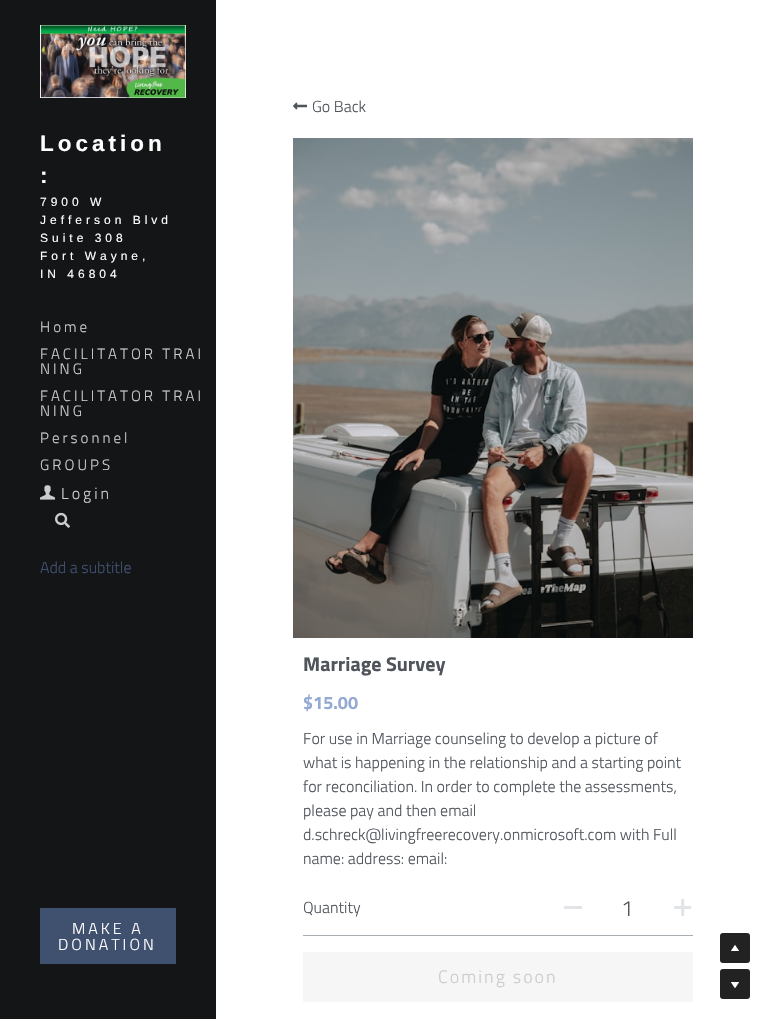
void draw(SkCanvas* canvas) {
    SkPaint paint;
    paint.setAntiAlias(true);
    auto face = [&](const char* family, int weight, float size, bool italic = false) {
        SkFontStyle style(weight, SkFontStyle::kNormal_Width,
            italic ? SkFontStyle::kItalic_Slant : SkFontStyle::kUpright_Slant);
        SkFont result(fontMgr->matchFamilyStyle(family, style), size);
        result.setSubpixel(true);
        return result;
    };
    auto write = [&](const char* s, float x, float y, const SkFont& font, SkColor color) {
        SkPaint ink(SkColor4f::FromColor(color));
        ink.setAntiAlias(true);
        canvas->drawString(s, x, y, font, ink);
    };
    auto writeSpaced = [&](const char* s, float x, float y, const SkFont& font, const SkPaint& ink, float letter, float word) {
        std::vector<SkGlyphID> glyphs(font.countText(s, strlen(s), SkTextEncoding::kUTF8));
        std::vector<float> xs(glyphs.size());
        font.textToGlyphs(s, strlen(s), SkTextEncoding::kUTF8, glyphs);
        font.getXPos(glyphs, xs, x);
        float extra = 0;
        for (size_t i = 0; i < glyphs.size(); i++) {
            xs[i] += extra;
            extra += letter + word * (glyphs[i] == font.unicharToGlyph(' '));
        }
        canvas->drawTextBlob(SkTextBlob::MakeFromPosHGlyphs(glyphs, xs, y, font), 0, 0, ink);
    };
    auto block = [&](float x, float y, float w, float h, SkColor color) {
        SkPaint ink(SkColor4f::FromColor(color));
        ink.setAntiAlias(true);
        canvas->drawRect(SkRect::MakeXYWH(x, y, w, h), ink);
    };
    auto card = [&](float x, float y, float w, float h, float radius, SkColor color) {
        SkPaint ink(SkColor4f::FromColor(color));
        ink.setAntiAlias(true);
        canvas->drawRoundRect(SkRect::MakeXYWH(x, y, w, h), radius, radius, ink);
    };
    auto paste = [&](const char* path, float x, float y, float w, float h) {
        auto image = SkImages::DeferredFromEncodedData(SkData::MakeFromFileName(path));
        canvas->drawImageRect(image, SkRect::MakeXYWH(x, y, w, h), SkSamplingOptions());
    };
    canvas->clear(SK_ColorWHITE);
    block(0, 0, 216, 1019, SkColorSetRGB(20, 21, 23));
    paste("pic1.png", 40, 25, 146, 73);
    auto kFont1 = face("Liberation Sans", 700, 22.5f);
    paint.setColor(SK_ColorWHITE);
    writeSpaced("Location", 40, 151, kFont1, paint, 4, 0);
    writeSpaced(":", 40, 183, kFont1, paint, 4, 0);
    auto kFont2 = face("Liberation Sans", 400, 12);
    writeSpaced("7900 W", 40, 206, kFont2, paint, 4, 0);
    writeSpaced("Jefferson Blvd", 40, 224, kFont2, paint, 4, 0);
    writeSpaced("Suite 308", 40, 242, kFont2, paint, 4, 0);
    writeSpaced("Fort Wayne,", 40, 260, kFont2, paint, 4, 0);
    writeSpaced("IN 46804", 40, 278, kFont2, paint, 4, 0);
    auto kFont3 = face("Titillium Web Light", 300, 15);
    paint.setColor(SkColorSetRGB(204, 204, 204));
    writeSpaced("Home", 40, 332, kFont3, paint, 3, 0);
    writeSpaced("FACILITATOR TRAI", 40, 359, kFont3, paint, 3, 0);
    writeSpaced("NING", 40, 374, kFont3, paint, 3, 0);
    writeSpaced("FACILITATOR TRAI", 40, 401, kFont3, paint, 3, 0);
    writeSpaced("NING", 40, 416, kFont3, paint, 3, 0);
    writeSpaced("Personnel", 40, 443, kFont3, paint, 3, 0);
    writeSpaced("GROUPS", 40, 470, kFont3, paint, 3, 0);
    paste("pic2.png", 40, 485, 16, 15);
    auto kFont4 = face("Titillium Web Light", 300, 16);
    writeSpaced("Login", 61, 499, kFont4, paint, 3, 0);
    paste("pic3.png", 55, 512, 15, 16);
    write("Add a subtitle", 40, 573, kFont4, SkColorSetRGB(64, 80, 111));
    block(40, 908, 136, 56, SkColorSetRGB(64, 80, 111));
    paint.setColor(SK_ColorWHITE);
    writeSpaced("MAKE A", 72, 934, kFont4, paint, 3, 0);
    writeSpaced("DONATION", 58, 950, kFont4, paint, 3, 0);
    paste("pic4.png", 293, 102, 15, 8);
    write("Go Back", 312, 112, kFont4, SkColorSetRGB(80, 85, 92));
    paste("pic5.png", 293, 138, 400, 500);
    auto kFont5 = face("Titillium Web", 700, 20);
    write("Marriage Survey", 303, 671, kFont5, SkColorSetRGB(80, 85, 92));
    auto kFont6 = face("Titillium Web", 700, 18);
    write("$15.00", 303, 709, kFont6, SkColorSetRGB(148, 169, 211));
    write("For use in Marriage counseling to develop a picture of", 303, 744, kFont4, SkColorSetRGB(80, 85, 92));
    write("what is happening in the relationship and a starting point", 303, 768, kFont4, SkColorSetRGB(80, 85, 92));
    write("for reconciliation. In order to complete the assessments,", 303, 792, kFont4, SkColorSetRGB(80, 85, 92));
    write("please pay and then email", 303, 816, kFont4, SkColorSetRGB(80, 85, 92));
    write("d.schreck@livingfreerecovery.onmicrosoft.com with Full", 303, 840, kFont4, SkColorSetRGB(80, 85, 92));
    write("name: address: email:", 303, 864, kFont4, SkColorSetRGB(80, 85, 92));
    block(303, 935, 390, 1, SkColorSetRGB(169, 174, 178));
    write("Quantity", 303, 913, kFont4, SkColorSetRGB(80, 85, 92));
    block(564, 906, 18, 3, SkColorSetRGB(226, 228, 231));
    auto kFont7 = face("Titillium Web Light", 300, 22);
    write("1", 621, 916, kFont7, SkColorSetRGB(80, 85, 92));
    paste("pic6.png", 674, 898, 18, 19);
    block(303, 952, 390, 50, SkColorSetRGB(246, 246, 246));
    auto kFont8 = face("Titillium Web Light", 300, 18);
    paint.setColor(SkColorSetRGB(204, 204, 204));
    writeSpaced("Coming soon", 438, 983, kFont8, paint, 2, 0);
    card(720, 933, 30, 30, 3, SkColorSetRGB(34, 34, 34));
    paste("pic7.png", 731, 945, 8, 6);
    card(720, 969, 30, 30, 3, SkColorSetRGB(34, 34, 34));
    paste("pic8.png", 731, 982, 8, 6);
}
